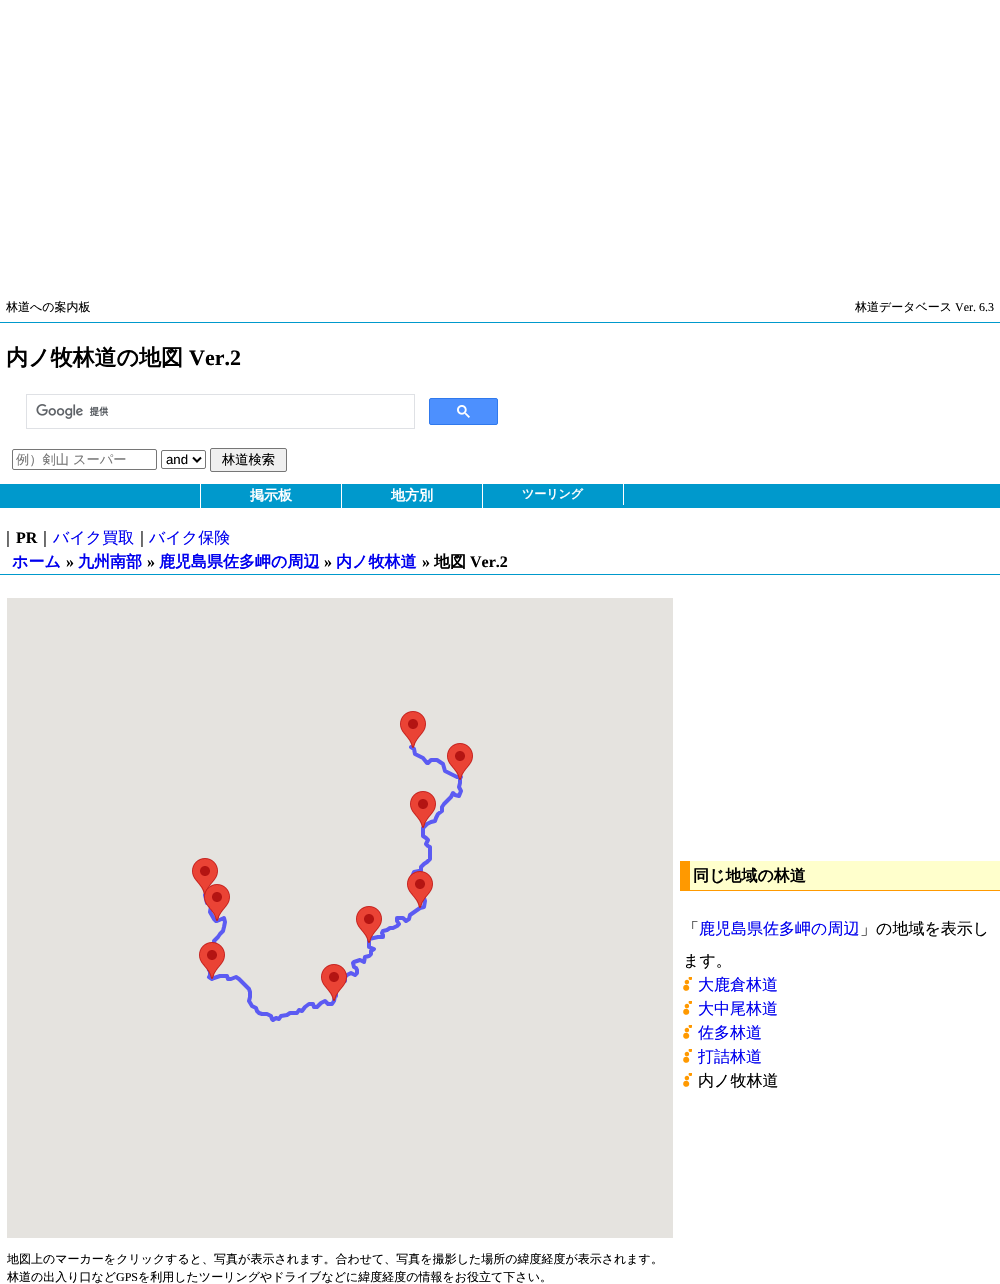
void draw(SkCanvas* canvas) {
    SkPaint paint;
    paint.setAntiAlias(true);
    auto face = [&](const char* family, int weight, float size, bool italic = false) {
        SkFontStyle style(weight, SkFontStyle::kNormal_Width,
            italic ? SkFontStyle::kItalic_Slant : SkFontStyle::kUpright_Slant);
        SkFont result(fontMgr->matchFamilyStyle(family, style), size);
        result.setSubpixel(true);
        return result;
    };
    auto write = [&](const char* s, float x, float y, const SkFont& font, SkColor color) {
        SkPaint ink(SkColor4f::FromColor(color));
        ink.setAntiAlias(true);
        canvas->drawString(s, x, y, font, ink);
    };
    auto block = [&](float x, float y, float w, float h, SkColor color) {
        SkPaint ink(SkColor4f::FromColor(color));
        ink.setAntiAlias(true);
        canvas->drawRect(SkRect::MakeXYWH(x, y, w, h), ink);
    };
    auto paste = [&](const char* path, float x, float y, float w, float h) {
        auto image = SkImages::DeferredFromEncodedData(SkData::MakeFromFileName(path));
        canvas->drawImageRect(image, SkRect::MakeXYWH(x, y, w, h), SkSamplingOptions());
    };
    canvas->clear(SK_ColorWHITE);
    block(0, 322, 1000, 1, SkColorSetRGB(0, 153, 204));
    auto kFont1 = face("WenQuanYi Zen Hei", 500, 12);
    write("林道への案内板", 6, 311, kFont1, SK_ColorBLACK);
    write("林道データベース", 855, 311, kFont1, SK_ColorBLACK);
    auto kFont2 = face("Liberation Serif", 400, 12);
    write("Ver. 6.3", 955, 311, kFont2, SK_ColorBLACK);
    auto kFont3 = face("WenQuanYi Zen Hei", 700, 22);
    write("内ノ牧林道の地図", 6, 365, kFont3, SK_ColorBLACK);
    auto kFont4 = face("Liberation Serif", 700, 22);
    write("Ver.2", 189, 365, kFont4, SK_ColorBLACK);
    paint.setStyle(SkPaint::kStroke_Style);
    paint.setStrokeWidth(1);
    paint.setColor(SkColorSetRGB(223, 225, 229));
    canvas->drawRect(SkRect::MakeXYWH(26.5f, 394.5f, 388, 34), paint);
    paste("pic1.png", 36, 404, 73, 15);
    paint.setStyle(SkPaint::kFill_Style);
    paint.setColor(SkColorSetRGB(77, 144, 254));
    canvas->drawRoundRect(SkRect::MakeXYWH(429.5f, 398.5f, 68, 26), 1.5f, 1.5f, paint);
    paint.setStyle(SkPaint::kStroke_Style);
    paint.setColor(SkColorSetRGB(48, 121, 237));
    canvas->drawRoundRect(SkRect::MakeXYWH(429.5f, 398.5f, 68, 26), 1.5f, 1.5f, paint);
    paste("pic2.png", 457, 405, 13, 13);
    paint.setColor(SkColorSetRGB(118, 118, 118));
    canvas->drawRoundRect(SkRect::MakeXYWH(12.5f, 449.5f, 144, 20), 1.5f, 1.5f, paint);
    auto kFont5 = face("WenQuanYi Zen Hei", 500, 13.25f);
    write("例）剣山 スーパー", 16, 464, kFont5, SkColorSetRGB(117, 117, 117));
    canvas->drawRoundRect(SkRect::MakeXYWH(161.5f, 450.5f, 44, 18), 1.5f, 1.5f, paint);
    paint.setStrokeWidth(2);
    paint.setColor(SK_ColorBLACK);
    canvas->drawPath(SkPathBuilder().moveTo(193, 457.5f).lineTo(197, 461.5f).lineTo(201, 457.5f).detach(), paint);
    auto kFont6 = face("Liberation Sans", 400, 13.25f);
    write("and", 166, 464, kFont6, SK_ColorBLACK);
    paint.setStyle(SkPaint::kFill_Style);
    paint.setColor(SkColorSetRGB(239, 239, 239));
    canvas->drawRoundRect(SkRect::MakeXYWH(210.5f, 448.5f, 76, 23), 1.5f, 1.5f, paint);
    paint.setStyle(SkPaint::kStroke_Style);
    paint.setStrokeWidth(1);
    paint.setColor(SkColorSetRGB(118, 118, 118));
    canvas->drawRoundRect(SkRect::MakeXYWH(210.5f, 448.5f, 76, 23), 1.5f, 1.5f, paint);
    write("林道検索", 222, 464, kFont5, SK_ColorBLACK);
    block(0, 484, 1000, 24, SkColorSetRGB(0, 153, 204));
    block(341, 484, 1, 24, SK_ColorWHITE);
    block(200, 484, 1, 24, SK_ColorWHITE);
    auto kFont7 = face("WenQuanYi Zen Hei", 700, 14);
    write("掲示板", 250, 500, kFont7, SK_ColorWHITE);
    block(482, 484, 1, 24, SK_ColorWHITE);
    write("地方別", 391, 500, kFont7, SK_ColorWHITE);
    block(623, 484, 1, 21, SK_ColorWHITE);
    auto kFont8 = face("WenQuanYi Zen Hei", 700, 12);
    write("ツーリング", 522, 498, kFont8, SK_ColorWHITE);
    auto kFont9 = face("WenQuanYi Zen Hei", 500, 16);
    write("｜", 0, 543, kFont9, SK_ColorBLACK);
    auto kFont10 = face("Liberation Serif", 700, 16);
    write("PR", 16, 543, kFont10, SK_ColorBLACK);
    write("｜", 37, 543, kFont9, SK_ColorBLACK);
    write("バイク買取", 53, 543, kFont9, SkColorSetRGB(0, 0, 238));
    write("｜", 134, 543, kFont9, SK_ColorBLACK);
    write("バイク保険", 149, 543, kFont9, SkColorSetRGB(0, 0, 238));
    block(0, 574, 1000, 1, SkColorSetRGB(0, 153, 204));
    auto kFont11 = face("WenQuanYi Zen Hei", 700, 16);
    write("ホーム", 12, 567, kFont11, SkColorSetRGB(0, 0, 238));
    write("»", 66, 567, kFont10, SK_ColorBLACK);
    write("九州南部", 78, 567, kFont11, SkColorSetRGB(0, 0, 238));
    write("»", 147, 567, kFont10, SK_ColorBLACK);
    write("鹿児島県佐多岬の周辺", 159, 567, kFont11, SkColorSetRGB(0, 0, 238));
    write("»", 324, 567, kFont10, SK_ColorBLACK);
    write("内ノ牧林道", 336, 567, kFont11, SkColorSetRGB(0, 0, 238));
    write("»", 422, 567, kFont10, SK_ColorBLACK);
    write("地図", 434, 567, kFont11, SK_ColorBLACK);
    write("Ver.2", 470, 567, kFont10, SK_ColorBLACK);
    block(690, 861, 310, 29, SkColorSetRGB(255, 255, 204));
    block(690, 890, 310, 1, SkColorSetRGB(255, 153, 0));
    block(680, 861, 10, 30, SkColorSetRGB(255, 153, 0));
    write("同じ地域の林道", 693, 881, kFont11, SK_ColorBLACK);
    write("「", 683, 934, kFont9, SK_ColorBLACK);
    write("鹿児島県佐多岬の周辺", 699, 934, kFont9, SkColorSetRGB(0, 0, 238));
    write("」の地域を表示し", 860, 934, kFont9, SK_ColorBLACK);
    write("ます。", 683, 966, kFont9, SK_ColorBLACK);
    paste("pic3.png", 683, 977, 9, 14);
    write("大鹿倉林道", 698, 990, kFont9, SkColorSetRGB(0, 0, 238));
    paste("pic3.png", 683, 1001, 9, 14);
    write("大中尾林道", 698, 1014, kFont9, SkColorSetRGB(0, 0, 238));
    paste("pic3.png", 683, 1025, 9, 14);
    write("佐多林道", 698, 1038, kFont9, SkColorSetRGB(0, 0, 238));
    paste("pic3.png", 683, 1049, 9, 14);
    write("打詰林道", 698, 1062, kFont9, SkColorSetRGB(0, 0, 238));
    paste("pic3.png", 683, 1073, 9, 14);
    write("内ノ牧林道", 698, 1086, kFont9, SK_ColorBLACK);
    block(7, 598, 666, 640, SkColorSetRGB(229, 227, 223));
    paste("pic13.png", 409, 745, 54, 66);
    paste("pic4.png", 400, 711, 26, 37);
    paste("pic5.png", 447, 743, 26, 37);
    paste("pic15.png", 252, 811, 192, 211);
    paste("pic6.png", 410, 791, 26, 37);
    paste("pic14.png", 203, 893, 49, 116);
    paste("pic7.png", 192, 858, 26, 37);
    paste("pic8.png", 407, 871, 26, 37);
    paste("pic9.png", 204, 884, 26, 37);
    paste("pic10.png", 356, 906, 26, 37);
    paste("pic11.png", 199, 942, 26, 37);
    paste("pic12.png", 321, 964, 26, 37);
    write("地図上のマーカーをクリックすると、写真が表示されます。合わせて、写真を撮影した場所の緯度経度が表示されます。", 7, 1263, kFont1, SK_ColorBLACK);
    write("林道の出入り口など", 7, 1281, kFont1, SK_ColorBLACK);
    write("GPS", 116, 1281, kFont2, SK_ColorBLACK);
    write("を利用したツーリングやドライブなどに緯度経度の情報をお役立て下さい。", 138, 1281, kFont1, SK_ColorBLACK);
}
